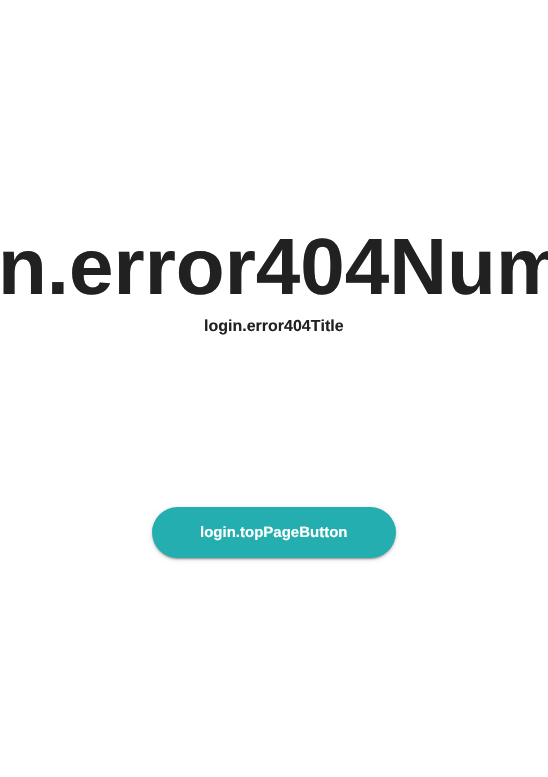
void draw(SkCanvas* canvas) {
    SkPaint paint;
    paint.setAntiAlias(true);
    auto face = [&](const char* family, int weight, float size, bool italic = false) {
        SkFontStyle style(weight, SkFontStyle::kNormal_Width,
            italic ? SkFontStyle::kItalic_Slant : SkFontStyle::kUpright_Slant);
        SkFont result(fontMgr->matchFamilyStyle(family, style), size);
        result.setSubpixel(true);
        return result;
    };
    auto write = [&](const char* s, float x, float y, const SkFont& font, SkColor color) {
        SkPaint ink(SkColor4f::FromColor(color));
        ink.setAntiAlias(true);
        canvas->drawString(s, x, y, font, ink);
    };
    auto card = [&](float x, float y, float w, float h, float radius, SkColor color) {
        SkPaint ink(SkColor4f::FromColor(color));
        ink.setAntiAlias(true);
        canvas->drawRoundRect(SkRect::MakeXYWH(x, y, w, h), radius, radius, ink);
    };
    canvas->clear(SK_ColorWHITE);
    auto kFont1 = face("Liberation Sans", 700, 80);
    write("n.error404Num", -2, 294, kFont1, SkColorSetRGB(33, 33, 33));
    auto kFont2 = face("Liberation Sans", 700, 16);
    write("login.error404Title", 204, 331, kFont2, SkColorSetRGB(33, 33, 33));
    paint.setColor(SkColorSetARGB(31, 0, 0, 0));
    paint.setMaskFilter(SkMaskFilter::MakeBlur(kNormal_SkBlurStyle, 2.5f));
    canvas->drawRoundRect(SkRect::MakeXYWH(152, 508, 244, 51), 25.5f, 25.5f, paint);
    paint.setMaskFilter(nullptr);
    paint.setColor(SkColorSetARGB(36, 0, 0, 0));
    paint.setMaskFilter(SkMaskFilter::MakeBlur(kNormal_SkBlurStyle, 1));
    canvas->drawRoundRect(SkRect::MakeXYWH(152, 509, 244, 51), 25.5f, 25.5f, paint);
    paint.setMaskFilter(nullptr);
    paint.setColor(SkColorSetARGB(51, 0, 0, 0));
    paint.setMaskFilter(SkMaskFilter::MakeBlur(kNormal_SkBlurStyle, 0.5f));
    canvas->drawRoundRect(SkRect::MakeXYWH(154, 512, 240, 47), 23.5f, 23.5f, paint);
    paint.setMaskFilter(nullptr);
    card(152, 507, 244, 51, 25.5f, SkColorSetRGB(37, 174, 175));
    auto kFont3 = face("Liberation Sans", 700, 15);
    write("login.topPageButton", 200, 537, kFont3, SK_ColorWHITE);
}
